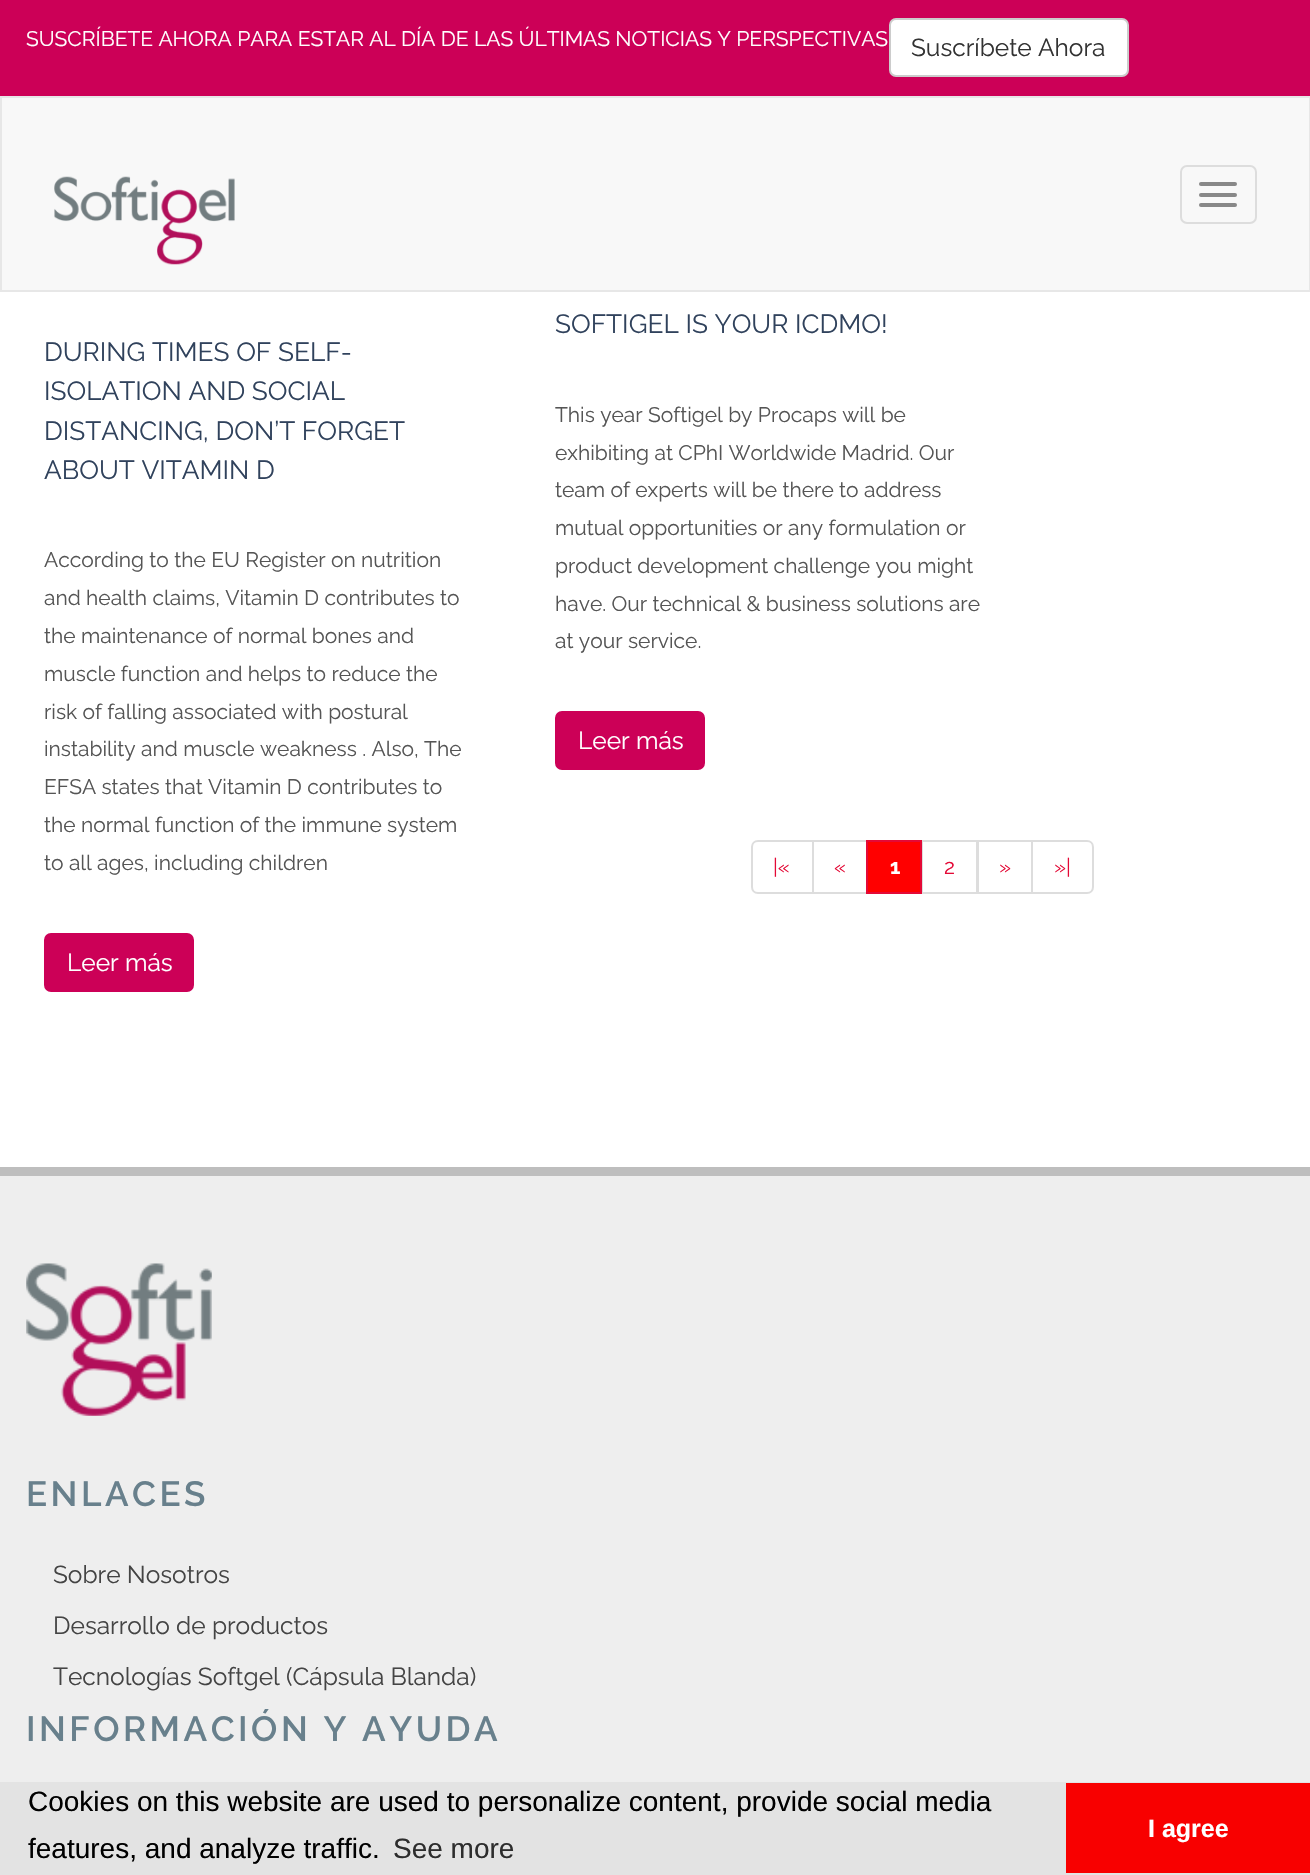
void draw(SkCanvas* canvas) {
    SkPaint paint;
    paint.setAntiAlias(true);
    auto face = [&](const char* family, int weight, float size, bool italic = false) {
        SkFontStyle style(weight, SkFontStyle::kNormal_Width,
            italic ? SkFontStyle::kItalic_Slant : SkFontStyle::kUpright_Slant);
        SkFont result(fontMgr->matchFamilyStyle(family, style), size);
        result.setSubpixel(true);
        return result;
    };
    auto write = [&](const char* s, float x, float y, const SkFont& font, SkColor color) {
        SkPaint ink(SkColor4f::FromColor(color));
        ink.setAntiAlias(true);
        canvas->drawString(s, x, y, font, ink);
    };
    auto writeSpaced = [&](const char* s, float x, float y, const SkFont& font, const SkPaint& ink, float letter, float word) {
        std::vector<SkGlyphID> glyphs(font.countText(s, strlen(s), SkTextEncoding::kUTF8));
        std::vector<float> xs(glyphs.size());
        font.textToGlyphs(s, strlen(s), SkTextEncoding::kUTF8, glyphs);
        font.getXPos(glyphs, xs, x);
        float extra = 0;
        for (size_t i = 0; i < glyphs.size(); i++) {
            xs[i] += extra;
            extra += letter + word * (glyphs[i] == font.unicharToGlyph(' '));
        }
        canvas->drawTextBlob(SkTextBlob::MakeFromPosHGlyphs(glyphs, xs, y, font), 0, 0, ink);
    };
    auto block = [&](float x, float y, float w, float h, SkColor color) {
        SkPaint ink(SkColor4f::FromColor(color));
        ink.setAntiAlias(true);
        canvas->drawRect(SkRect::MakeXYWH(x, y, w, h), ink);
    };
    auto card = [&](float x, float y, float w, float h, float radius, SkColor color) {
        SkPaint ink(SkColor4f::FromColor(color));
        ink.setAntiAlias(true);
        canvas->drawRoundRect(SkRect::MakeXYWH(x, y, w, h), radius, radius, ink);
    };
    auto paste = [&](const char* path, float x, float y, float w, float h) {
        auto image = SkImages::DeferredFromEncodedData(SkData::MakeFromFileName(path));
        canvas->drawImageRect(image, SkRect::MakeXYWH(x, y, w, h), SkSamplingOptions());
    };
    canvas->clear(SK_ColorWHITE);
    block(0, 0, 1310, 96, SkColorSetRGB(204, 0, 87));
    auto kFont1 = face("Raleway", 400, 21);
    write("SUSCRÍBETE AHORA PARA ESTAR AL DÍA DE LAS ÚLTIMAS NOTICIAS Y PERSPECTIVAS", 26, 46, kFont1, SK_ColorWHITE);
    paint.setColor(SK_ColorWHITE);
    canvas->drawRoundRect(SkRect::MakeXYWH(890, 19, 238, 57), 6, 6, paint);
    paint.setStyle(SkPaint::kStroke_Style);
    paint.setStrokeWidth(2);
    paint.setColor(SkColorSetRGB(204, 204, 204));
    canvas->drawRoundRect(SkRect::MakeXYWH(890, 19, 238, 57), 6, 6, paint);
    auto kFont2 = face("Raleway", 400, 24.5f);
    write("Suscríbete Ahora", 911, 56, kFont2, SkColorSetRGB(51, 51, 51));
    paint.setStyle(SkPaint::kFill_Style);
    paint.setColor(SkColorSetRGB(248, 248, 248));
    canvas->drawRect(SkRect::MakeXYWH(1, 97, 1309, 194), paint);
    paint.setStyle(SkPaint::kStroke_Style);
    paint.setColor(SkColorSetRGB(231, 231, 231));
    canvas->drawRect(SkRect::MakeXYWH(1, 97, 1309, 194), paint);
    paste("pic1.png", 54, 176, 181, 89);
    paint.setColor(SkColorSetRGB(221, 221, 221));
    canvas->drawRoundRect(SkRect::MakeXYWH(1181, 166, 75, 57), 6, 6, paint);
    card(1199, 182, 38, 4, 2, SkColorSetRGB(136, 136, 136));
    card(1199, 193, 38, 4, 2, SkColorSetRGB(136, 136, 136));
    card(1199, 203, 38, 4, 2, SkColorSetRGB(136, 136, 136));
    auto kFont3 = face("Raleway", 400, 26.25f);
    write("DURING TIMES OF SELF-", 44, 361, kFont3, SkColorSetRGB(48, 66, 92));
    write("ISOLATION AND SOCIAL", 44, 400, kFont3, SkColorSetRGB(48, 66, 92));
    write("DISTANCING, DON’T FORGET", 44, 440, kFont3, SkColorSetRGB(48, 66, 92));
    write("ABOUT VITAMIN D", 44, 479, kFont3, SkColorSetRGB(48, 66, 92));
    write("According to the EU Register on nutrition", 44, 567, kFont1, SkColorSetRGB(85, 85, 85));
    write("and health claims, Vitamin D contributes to", 44, 605, kFont1, SkColorSetRGB(85, 85, 85));
    write("the maintenance of normal bones and", 44, 643, kFont1, SkColorSetRGB(85, 85, 85));
    write("muscle function and helps to reduce the", 44, 681, kFont1, SkColorSetRGB(85, 85, 85));
    write("risk of falling associated with postural", 44, 719, kFont1, SkColorSetRGB(85, 85, 85));
    write("instability and muscle weakness . Also, The", 44, 756, kFont1, SkColorSetRGB(85, 85, 85));
    write("EFSA states that Vitamin D contributes to", 44, 794, kFont1, SkColorSetRGB(85, 85, 85));
    write("the normal function of the immune system", 44, 832, kFont1, SkColorSetRGB(85, 85, 85));
    write("to all ages, including children", 44, 870, kFont1, SkColorSetRGB(85, 85, 85));
    paint.setStyle(SkPaint::kFill_Style);
    paint.setColor(SkColorSetRGB(204, 0, 87));
    canvas->drawRoundRect(SkRect::MakeXYWH(45, 934, 148, 57), 6, 6, paint);
    paint.setStyle(SkPaint::kStroke_Style);
    canvas->drawRoundRect(SkRect::MakeXYWH(45, 934, 148, 57), 6, 6, paint);
    write("Leer más", 67, 971, kFont2, SK_ColorWHITE);
    write("SOFTIGEL IS YOUR ICDMO!", 555, 333, kFont3, SkColorSetRGB(48, 66, 92));
    write("This year Softigel by Procaps will be", 555, 422, kFont1, SkColorSetRGB(85, 85, 85));
    write("exhibiting at CPhI Worldwide Madrid. Our", 555, 460, kFont1, SkColorSetRGB(85, 85, 85));
    write("team of experts will be there to address", 555, 497, kFont1, SkColorSetRGB(85, 85, 85));
    write("mutual opportunities or any formulation or", 555, 535, kFont1, SkColorSetRGB(85, 85, 85));
    write("product development challenge you might", 555, 573, kFont1, SkColorSetRGB(85, 85, 85));
    write("have. Our technical & business solutions are", 555, 611, kFont1, SkColorSetRGB(85, 85, 85));
    write("at your service.", 555, 648, kFont1, SkColorSetRGB(85, 85, 85));
    paint.setStyle(SkPaint::kFill_Style);
    canvas->drawRoundRect(SkRect::MakeXYWH(556, 712, 148, 57), 6, 6, paint);
    paint.setStyle(SkPaint::kStroke_Style);
    canvas->drawRoundRect(SkRect::MakeXYWH(556, 712, 148, 57), 6, 6, paint);
    write("Leer más", 578, 749, kFont2, SK_ColorWHITE);
    paint.setColor(SkColorSetRGB(221, 221, 221));
    canvas->drawPath(SkPathBuilder().moveTo(758, 841).lineTo(813, 841).lineTo(813, 893).lineTo(758, 893).cubicTo(754.5f, 893, 752, 890.5f, 752, 887).lineTo(752, 847).cubicTo(752, 843.5f, 754.5f, 841, 758, 841).close().detach(), paint);
    write("|«", 773, 874, kFont1, SkColorSetRGB(228, 9, 54));
    canvas->drawRect(SkRect::MakeXYWH(813, 841, 54, 52), paint);
    write("«", 834, 874, kFont1, SkColorSetRGB(228, 9, 54));
    canvas->drawRect(SkRect::MakeXYWH(922, 841, 55, 52), paint);
    paint.setStyle(SkPaint::kFill_Style);
    paint.setColor(SkColorSetRGB(255, 0, 0));
    canvas->drawRect(SkRect::MakeXYWH(867, 841, 54, 52), paint);
    paint.setStyle(SkPaint::kStroke_Style);
    paint.setColor(SkColorSetRGB(228, 9, 54));
    canvas->drawRect(SkRect::MakeXYWH(867, 841, 54, 52), paint);
    auto kFont4 = face("Raleway", 700, 21);
    write("1", 890, 874, kFont4, SK_ColorWHITE);
    write("2", 944, 874, kFont1, SkColorSetRGB(228, 9, 54));
    paint.setColor(SkColorSetRGB(221, 221, 221));
    canvas->drawRect(SkRect::MakeXYWH(978, 841, 54, 52), paint);
    write("»", 999, 874, kFont1, SkColorSetRGB(228, 9, 54));
    paint.setStyle(SkPaint::kFill_Style);
    paint.setColor(SK_ColorWHITE);
    canvas->drawPath(SkPathBuilder().moveTo(1032, 841).lineTo(1087, 841).cubicTo(1090.5f, 841, 1093, 843.5f, 1093, 847).lineTo(1093, 887).cubicTo(1093, 890.5f, 1090.5f, 893, 1087, 893).lineTo(1032, 893).close().detach(), paint);
    paint.setStyle(SkPaint::kStroke_Style);
    paint.setColor(SkColorSetRGB(221, 221, 221));
    canvas->drawPath(SkPathBuilder().moveTo(1032, 841).lineTo(1087, 841).cubicTo(1090.5f, 841, 1093, 843.5f, 1093, 847).lineTo(1093, 887).cubicTo(1093, 890.5f, 1090.5f, 893, 1087, 893).lineTo(1032, 893).close().detach(), paint);
    write("»|", 1054, 874, kFont1, SkColorSetRGB(228, 9, 54));
    block(0, 1176, 1310, 606, SkColorSetRGB(238, 238, 238));
    block(0, 1167, 1310, 9, SkColorSetRGB(190, 190, 190));
    paste("pic2.png", 26, 1263, 186, 153);
    auto kFont5 = face("Raleway", 600, 35);
    paint.setStyle(SkPaint::kFill_Style);
    paint.setColor(SkColorSetRGB(104, 128, 140));
    writeSpaced("ENLACES", 26, 1506, kFont5, paint, 3.5f, 0);
    write("Sobre Nosotros", 53, 1583, kFont2, SkColorSetRGB(68, 68, 68));
    write("Desarrollo de productos", 53, 1634, kFont2, SkColorSetRGB(68, 68, 68));
    write("Tecnologías Softgel (Cápsula Blanda)", 53, 1685, kFont2, SkColorSetRGB(68, 68, 68));
    writeSpaced("INFORMACIÓN Y AYUDA", 26, 1741, kFont5, paint, 3.5f, 0);
    block(0, 1782, 1310, 93, SkColorSetRGB(227, 227, 227));
    auto kFont6 = face("Liberation Sans", 400, 28);
    write("Cookies on this website are used to personalize content, provide social media", 28, 1811, kFont6, SK_ColorBLACK);
    write("features, and analyze traffic.", 28, 1858, kFont6, SK_ColorBLACK);
    write("See more", 393, 1858, kFont6, SkColorSetRGB(45, 45, 45));
    block(1066, 1783, 244, 90, SkColorSetRGB(248, 0, 0));
    auto kFont7 = face("Liberation Sans", 700, 25);
    write("I agree", 1148, 1837, kFont7, SK_ColorWHITE);
}
